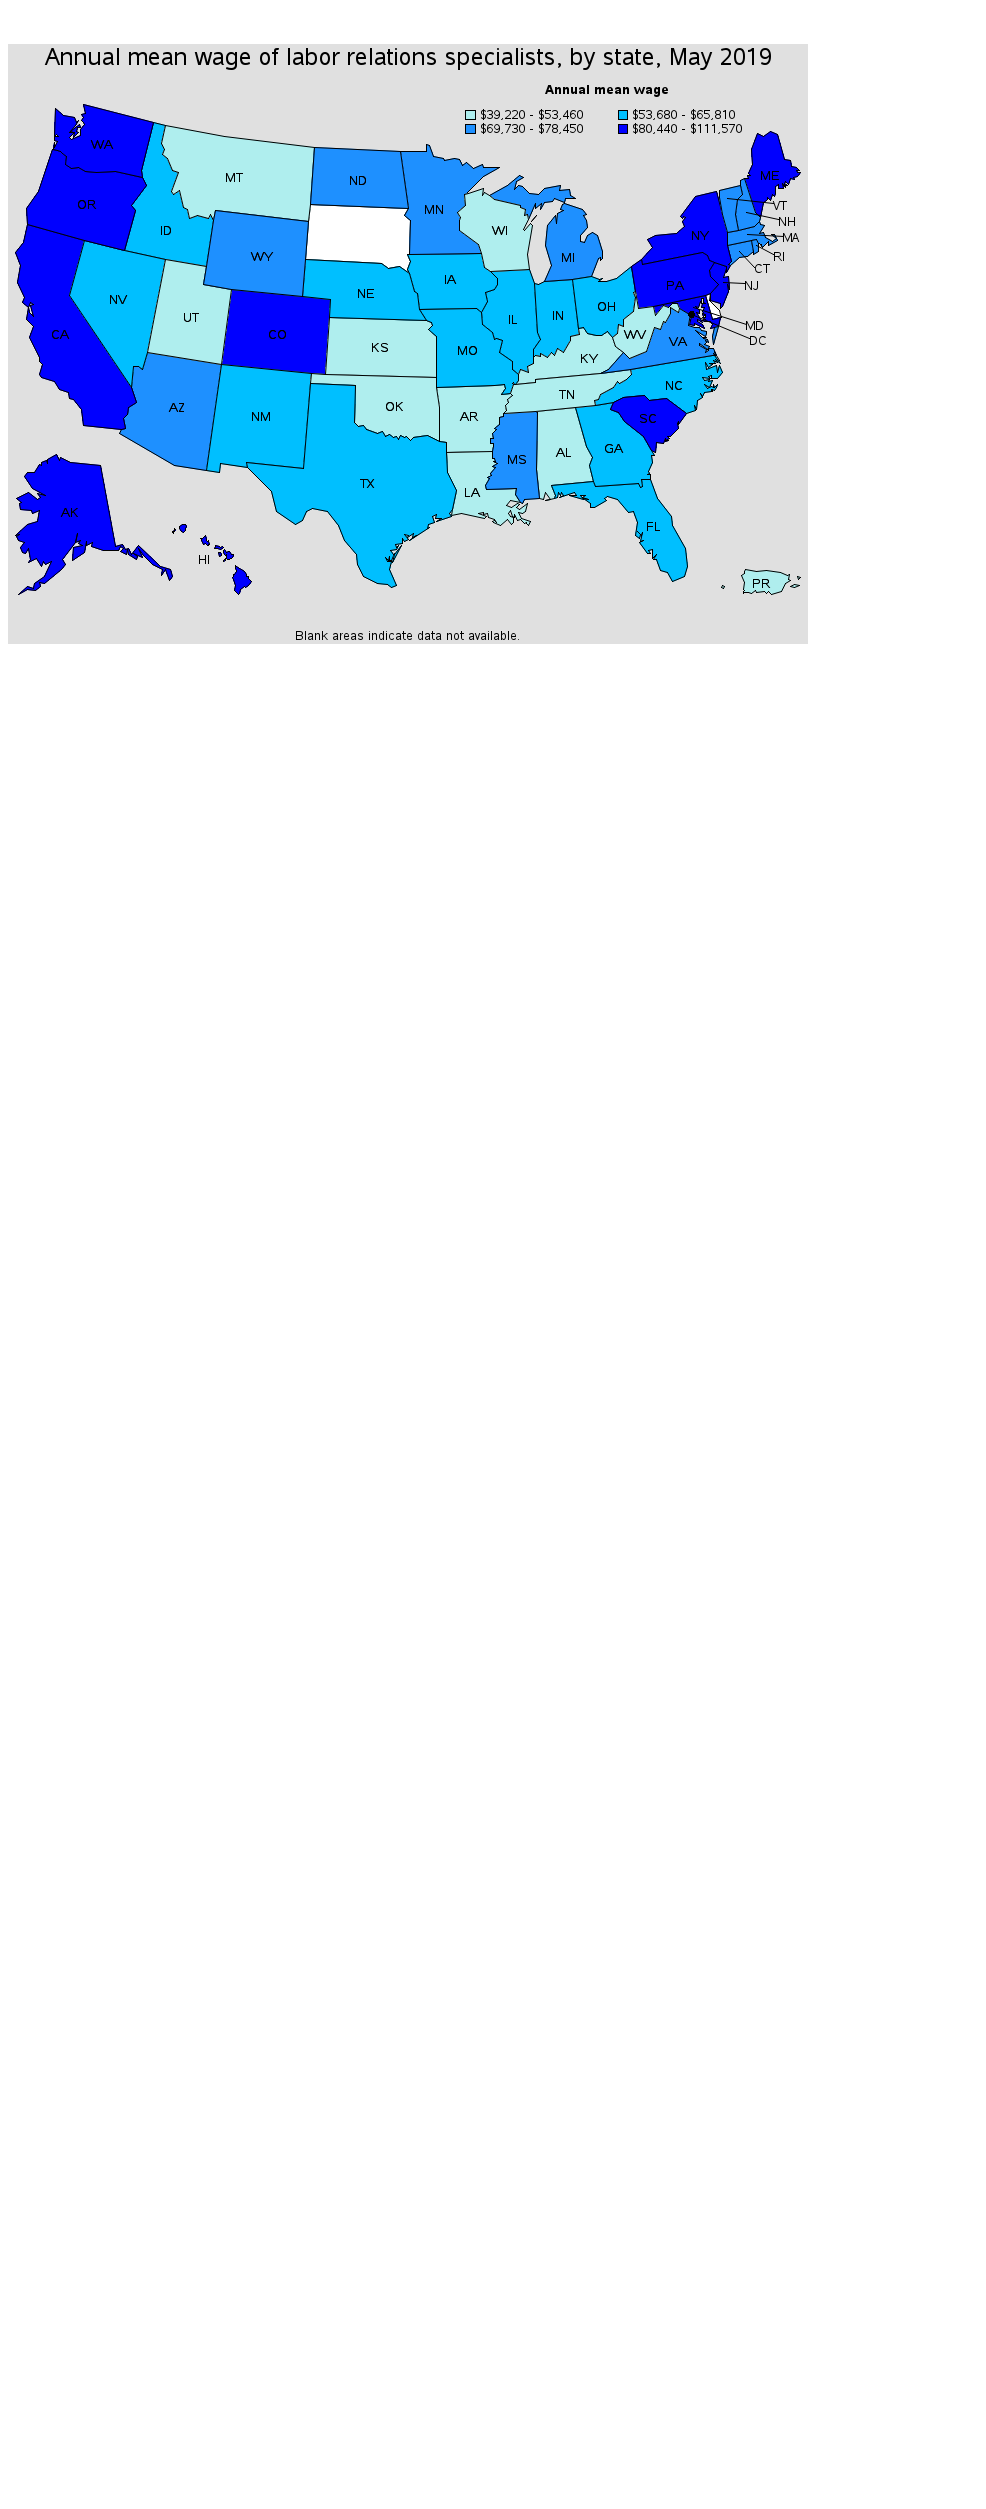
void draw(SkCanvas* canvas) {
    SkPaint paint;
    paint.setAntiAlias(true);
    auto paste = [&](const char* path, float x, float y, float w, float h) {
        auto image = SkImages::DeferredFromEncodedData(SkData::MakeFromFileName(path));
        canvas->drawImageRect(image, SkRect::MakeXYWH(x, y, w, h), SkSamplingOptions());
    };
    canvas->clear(SK_ColorWHITE);
    paste("pic1.png", 8, 44, 800, 600);
}
